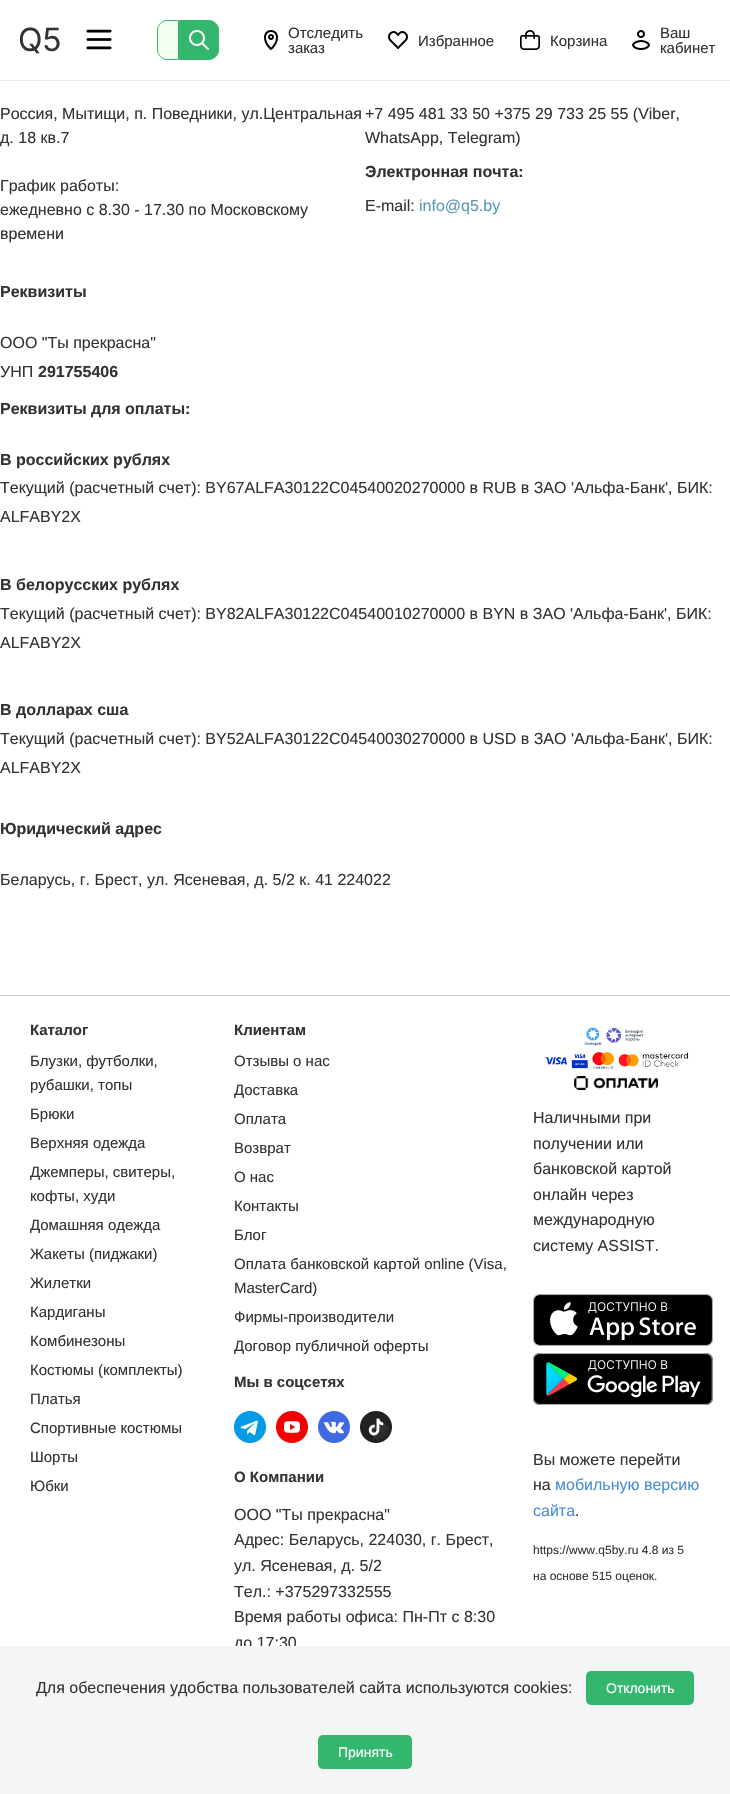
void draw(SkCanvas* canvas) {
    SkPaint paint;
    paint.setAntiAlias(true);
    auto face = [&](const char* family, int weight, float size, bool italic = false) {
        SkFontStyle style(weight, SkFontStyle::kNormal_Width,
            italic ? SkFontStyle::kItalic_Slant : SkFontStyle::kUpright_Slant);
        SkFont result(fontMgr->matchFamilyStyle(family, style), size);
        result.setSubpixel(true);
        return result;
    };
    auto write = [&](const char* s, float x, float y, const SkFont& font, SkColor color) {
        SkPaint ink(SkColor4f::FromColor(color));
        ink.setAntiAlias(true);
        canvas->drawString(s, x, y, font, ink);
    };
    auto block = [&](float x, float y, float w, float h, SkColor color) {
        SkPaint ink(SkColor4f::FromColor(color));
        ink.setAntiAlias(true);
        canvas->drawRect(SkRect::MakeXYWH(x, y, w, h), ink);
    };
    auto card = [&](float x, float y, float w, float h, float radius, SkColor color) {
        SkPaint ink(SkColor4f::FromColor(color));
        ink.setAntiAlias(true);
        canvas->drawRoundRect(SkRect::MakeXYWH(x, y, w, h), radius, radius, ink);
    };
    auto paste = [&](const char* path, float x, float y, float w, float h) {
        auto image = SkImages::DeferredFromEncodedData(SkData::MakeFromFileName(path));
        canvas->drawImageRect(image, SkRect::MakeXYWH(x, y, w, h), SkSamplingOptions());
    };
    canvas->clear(SK_ColorWHITE);
    block(0, 80, 730, 1, SkColorSetRGB(236, 236, 236));
    auto kFont1 = face("Inter", 400, 32);
    write("Q5", 18, 51, kFont1, SkColorSetRGB(51, 51, 51));
    paste("pic1.png", 86, 29, 26, 21);
    paint.setColor(SkColorSetRGB(243, 255, 243));
    canvas->drawPath(SkPathBuilder().moveTo(167, 20.5f).lineTo(178.5f, 20.5f).lineTo(178.5f, 59.5f).lineTo(167, 59.5f).cubicTo(162, 59.5f, 157.5f, 55, 157.5f, 50).lineTo(157.5f, 30).cubicTo(157.5f, 25, 162, 20.5f, 167, 20.5f).close().detach(), paint);
    paint.setStyle(SkPaint::kStroke_Style);
    paint.setStrokeWidth(1);
    paint.setColor(SkColorSetRGB(50, 183, 108));
    canvas->drawPath(SkPathBuilder().moveTo(167, 20.5f).lineTo(178.5f, 20.5f).lineTo(178.5f, 59.5f).lineTo(167, 59.5f).cubicTo(162, 59.5f, 157.5f, 55, 157.5f, 50).lineTo(157.5f, 30).cubicTo(157.5f, 25, 162, 20.5f, 167, 20.5f).close().detach(), paint);
    paint.setStyle(SkPaint::kFill_Style);
    canvas->drawPath(SkPathBuilder().moveTo(179.5f, 20.5f).lineTo(209, 20.5f).cubicTo(214, 20.5f, 218.5f, 25, 218.5f, 30).lineTo(218.5f, 50).cubicTo(218.5f, 55, 214, 59.5f, 209, 59.5f).lineTo(179.5f, 59.5f).close().detach(), paint);
    paint.setStyle(SkPaint::kStroke_Style);
    canvas->drawPath(SkPathBuilder().moveTo(179.5f, 20.5f).lineTo(209, 20.5f).cubicTo(214, 20.5f, 218.5f, 25, 218.5f, 30).lineTo(218.5f, 50).cubicTo(218.5f, 55, 214, 59.5f, 209, 59.5f).lineTo(179.5f, 59.5f).close().detach(), paint);
    paste("pic2.png", 189, 30, 20, 20);
    paste("pic3.png", 264, 30, 14, 20);
    auto kFont2 = face("Liberation Sans", 400, 15);
    write("Отследить", 288, 38, kFont2, SkColorSetRGB(51, 51, 51));
    write("заказ", 288, 53, kFont2, SkColorSetRGB(51, 51, 51));
    paste("pic4.png", 388, 31, 20, 18);
    write("Избранное", 418, 46, kFont2, SkColorSetRGB(51, 51, 51));
    paste("pic5.png", 520, 30, 20, 20);
    write("Корзина", 550, 46, kFont2, SkColorSetRGB(51, 51, 51));
    paste("pic6.png", 632, 30, 18, 20);
    write("Ваш", 660, 38, kFont2, SkColorSetRGB(51, 51, 51));
    write("кабинет", 660, 53, kFont2, SkColorSetRGB(51, 51, 51));
    auto kFont3 = face("Liberation Sans", 400, 16);
    write("Россия, Мытищи, п. Поведники, ул.Центральная", 0, 119, kFont3, SkColorSetRGB(51, 51, 51));
    write("д. 18 кв.7", 0, 143, kFont3, SkColorSetRGB(51, 51, 51));
    write("График работы:", 0, 191, kFont3, SkColorSetRGB(51, 51, 51));
    write("ежедневно с 8.30 - 17.30 по Московскому", 0, 215, kFont3, SkColorSetRGB(51, 51, 51));
    write("времени", 0, 239, kFont3, SkColorSetRGB(51, 51, 51));
    write("+7 495 481 33 50 +375 29 733 25 55 (Viber,", 365, 119, kFont3, SkColorSetRGB(51, 51, 51));
    write("WhatsApp, Telegram)", 365, 143, kFont3, SkColorSetRGB(51, 51, 51));
    auto kFont4 = face("Liberation Sans", 700, 16);
    write("Электронная почта:", 365, 177, kFont4, SkColorSetRGB(51, 51, 51));
    write("E-mail:", 365, 211, kFont3, SkColorSetRGB(51, 51, 51));
    write("info@q5.by", 419, 211, kFont3, SkColorSetRGB(89, 152, 178));
    write("Реквизиты", 0, 297, kFont4, SkColorSetRGB(51, 51, 51));
    write("ООО \"Ты прекрасна\"", 0, 348, kFont3, SkColorSetRGB(51, 51, 51));
    write("УНП", 0, 377, kFont3, SkColorSetRGB(51, 51, 51));
    write("291755406", 38, 377, kFont4, SkColorSetRGB(51, 51, 51));
    write("Реквизиты для оплаты:", 0, 414, kFont4, SkColorSetRGB(51, 51, 51));
    write("В российских рублях", 0, 465, kFont4, SkColorSetRGB(51, 51, 51));
    write("Текущий (расчетный счет): BY67ALFA30122C04540020270000 в RUB в ЗАО 'Альфа-Банк', БИК:", 0, 493, kFont3, SkColorSetRGB(51, 51, 51));
    write("ALFABY2X", 0, 522, kFont3, SkColorSetRGB(51, 51, 51));
    write("В белорусских рублях", 0, 590, kFont4, SkColorSetRGB(51, 51, 51));
    write("Текущий (расчетный счет): BY82ALFA30122C04540010270000 в BYN в ЗАО 'Альфа-Банк', БИК:", 0, 619, kFont3, SkColorSetRGB(51, 51, 51));
    write("ALFABY2X", 0, 648, kFont3, SkColorSetRGB(51, 51, 51));
    write("В долларах сша", 0, 715, kFont4, SkColorSetRGB(51, 51, 51));
    write("Текущий (расчетный счет): BY52ALFA30122C04540030270000 в USD в ЗАО 'Альфа-Банк', БИК:", 0, 744, kFont3, SkColorSetRGB(51, 51, 51));
    write("ALFABY2X", 0, 773, kFont3, SkColorSetRGB(51, 51, 51));
    write("Юридический адрес", 0, 834, kFont4, SkColorSetRGB(51, 51, 51));
    write("Беларусь, г. Брест, ул. Ясеневая, д. 5/2 к. 41 224022", 0, 885, kFont3, SkColorSetRGB(51, 51, 51));
    block(0, 995, 730, 1, SkColorSetRGB(204, 204, 204));
    auto kFont5 = face("Liberation Sans", 700, 15);
    write("Каталог", 30, 1035, kFont5, SkColorSetRGB(51, 51, 51));
    write("Блузки, футболки,", 30, 1066, kFont2, SkColorSetRGB(51, 51, 51));
    write("рубашки, топы", 30, 1090, kFont2, SkColorSetRGB(51, 51, 51));
    write("Брюки", 30, 1119, kFont2, SkColorSetRGB(51, 51, 51));
    write("Верхняя одежда", 30, 1148, kFont2, SkColorSetRGB(51, 51, 51));
    write("Джемперы, свитеры,", 30, 1177, kFont2, SkColorSetRGB(51, 51, 51));
    write("кофты, худи", 30, 1201, kFont2, SkColorSetRGB(51, 51, 51));
    write("Домашняя одежда", 30, 1230, kFont2, SkColorSetRGB(51, 51, 51));
    write("Жакеты (пиджаки)", 30, 1259, kFont2, SkColorSetRGB(51, 51, 51));
    write("Жилетки", 30, 1288, kFont2, SkColorSetRGB(51, 51, 51));
    write("Кардиганы", 30, 1317, kFont2, SkColorSetRGB(51, 51, 51));
    write("Комбинезоны", 30, 1346, kFont2, SkColorSetRGB(51, 51, 51));
    write("Костюмы (комплекты)", 30, 1375, kFont2, SkColorSetRGB(51, 51, 51));
    write("Платья", 30, 1404, kFont2, SkColorSetRGB(51, 51, 51));
    write("Спортивные костюмы", 30, 1433, kFont2, SkColorSetRGB(51, 51, 51));
    write("Шорты", 30, 1462, kFont2, SkColorSetRGB(51, 51, 51));
    write("Юбки", 30, 1491, kFont2, SkColorSetRGB(51, 51, 51));
    write("Клиентам", 234, 1035, kFont5, SkColorSetRGB(51, 51, 51));
    write("Отзывы о нас", 234, 1066, kFont2, SkColorSetRGB(51, 51, 51));
    write("Доставка", 234, 1095, kFont2, SkColorSetRGB(51, 51, 51));
    write("Оплата", 234, 1124, kFont2, SkColorSetRGB(51, 51, 51));
    write("Возврат", 234, 1153, kFont2, SkColorSetRGB(51, 51, 51));
    write("О нас", 234, 1182, kFont2, SkColorSetRGB(51, 51, 51));
    write("Контакты", 234, 1211, kFont2, SkColorSetRGB(51, 51, 51));
    write("Блог", 234, 1240, kFont2, SkColorSetRGB(51, 51, 51));
    write("Оплата банковской картой online (Visa,", 234, 1269, kFont2, SkColorSetRGB(51, 51, 51));
    write("MasterCard)", 234, 1293, kFont2, SkColorSetRGB(51, 51, 51));
    write("Фирмы-производители", 234, 1322, kFont2, SkColorSetRGB(51, 51, 51));
    write("Договор публичной оферты", 234, 1351, kFont2, SkColorSetRGB(51, 51, 51));
    write("Мы в соцсетях", 234, 1387, kFont5, SkColorSetRGB(51, 51, 51));
    paste("pic7.png", 234, 1411, 32, 32);
    paste("pic8.png", 276, 1411, 32, 32);
    paste("pic9.png", 318, 1411, 32, 32);
    paste("pic10.png", 360, 1411, 32, 32);
    write("О Компании", 234, 1482, kFont5, SkColorSetRGB(51, 51, 51));
    write("ООО \"Ты прекрасна\"", 234, 1520, kFont3, SkColorSetRGB(51, 51, 51));
    write("Адрес: Беларусь, 224030, г. Брест,", 234, 1545, kFont3, SkColorSetRGB(51, 51, 51));
    write("ул. Ясеневая, д. 5/2", 234, 1571, kFont3, SkColorSetRGB(51, 51, 51));
    write("Тел.: +375297332555", 234, 1597, kFont3, SkColorSetRGB(51, 51, 51));
    write("Время работы офиса: Пн-Пт с 8:30", 234, 1622, kFont3, SkColorSetRGB(51, 51, 51));
    write("до 17:30", 234, 1648, kFont3, SkColorSetRGB(51, 51, 51));
    paste("pic11.png", 544, 1027, 145, 42);
    paste("pic12.png", 574, 1076, 84, 14);
    write("Наличными при", 533, 1123, kFont3, SkColorSetRGB(51, 51, 51));
    write("получении или", 533, 1149, kFont3, SkColorSetRGB(51, 51, 51));
    write("банковской картой", 533, 1174, kFont3, SkColorSetRGB(51, 51, 51));
    write("онлайн через", 533, 1200, kFont3, SkColorSetRGB(51, 51, 51));
    write("международную", 533, 1225, kFont3, SkColorSetRGB(51, 51, 51));
    write("систему ASSIST.", 533, 1251, kFont3, SkColorSetRGB(51, 51, 51));
    paste("pic13.png", 533, 1294, 180, 52);
    paste("pic14.png", 533, 1353, 180, 52);
    write("Вы можете перейти", 533, 1465, kFont3, SkColorSetRGB(51, 51, 51));
    write("на", 533, 1490, kFont3, SkColorSetRGB(51, 51, 51));
    write("мобильную версию", 555, 1490, kFont3, SkColorSetRGB(73, 141, 216));
    write("сайта", 533, 1516, kFont3, SkColorSetRGB(73, 141, 216));
    write(".", 575, 1516, kFont3, SkColorSetRGB(51, 51, 51));
    auto kFont6 = face("Liberation Sans", 400, 12);
    write("https://www.q5by.ru 4.8 из 5", 533, 1554, kFont6, SkColorSetRGB(51, 51, 51));
    write("на основе 515 оценок.", 533, 1580, kFont6, SkColorSetRGB(51, 51, 51));
    block(0, 1646, 730, 148, SkColorSetRGB(245, 245, 245));
    write("Для обеспечения удобства пользователей сайта используются cookies:", 36, 1693, kFont3, SkColorSetRGB(51, 51, 51));
    card(586, 1671, 108, 34, 5, SkColorSetRGB(50, 183, 108));
    auto kFont7 = face("Liberation Sans", 400, 14);
    write("Отклонить", 606, 1693, kFont7, SK_ColorWHITE);
    card(318, 1735, 94, 34, 5, SkColorSetRGB(50, 183, 108));
    write("Принять", 338, 1757, kFont7, SK_ColorWHITE);
}
